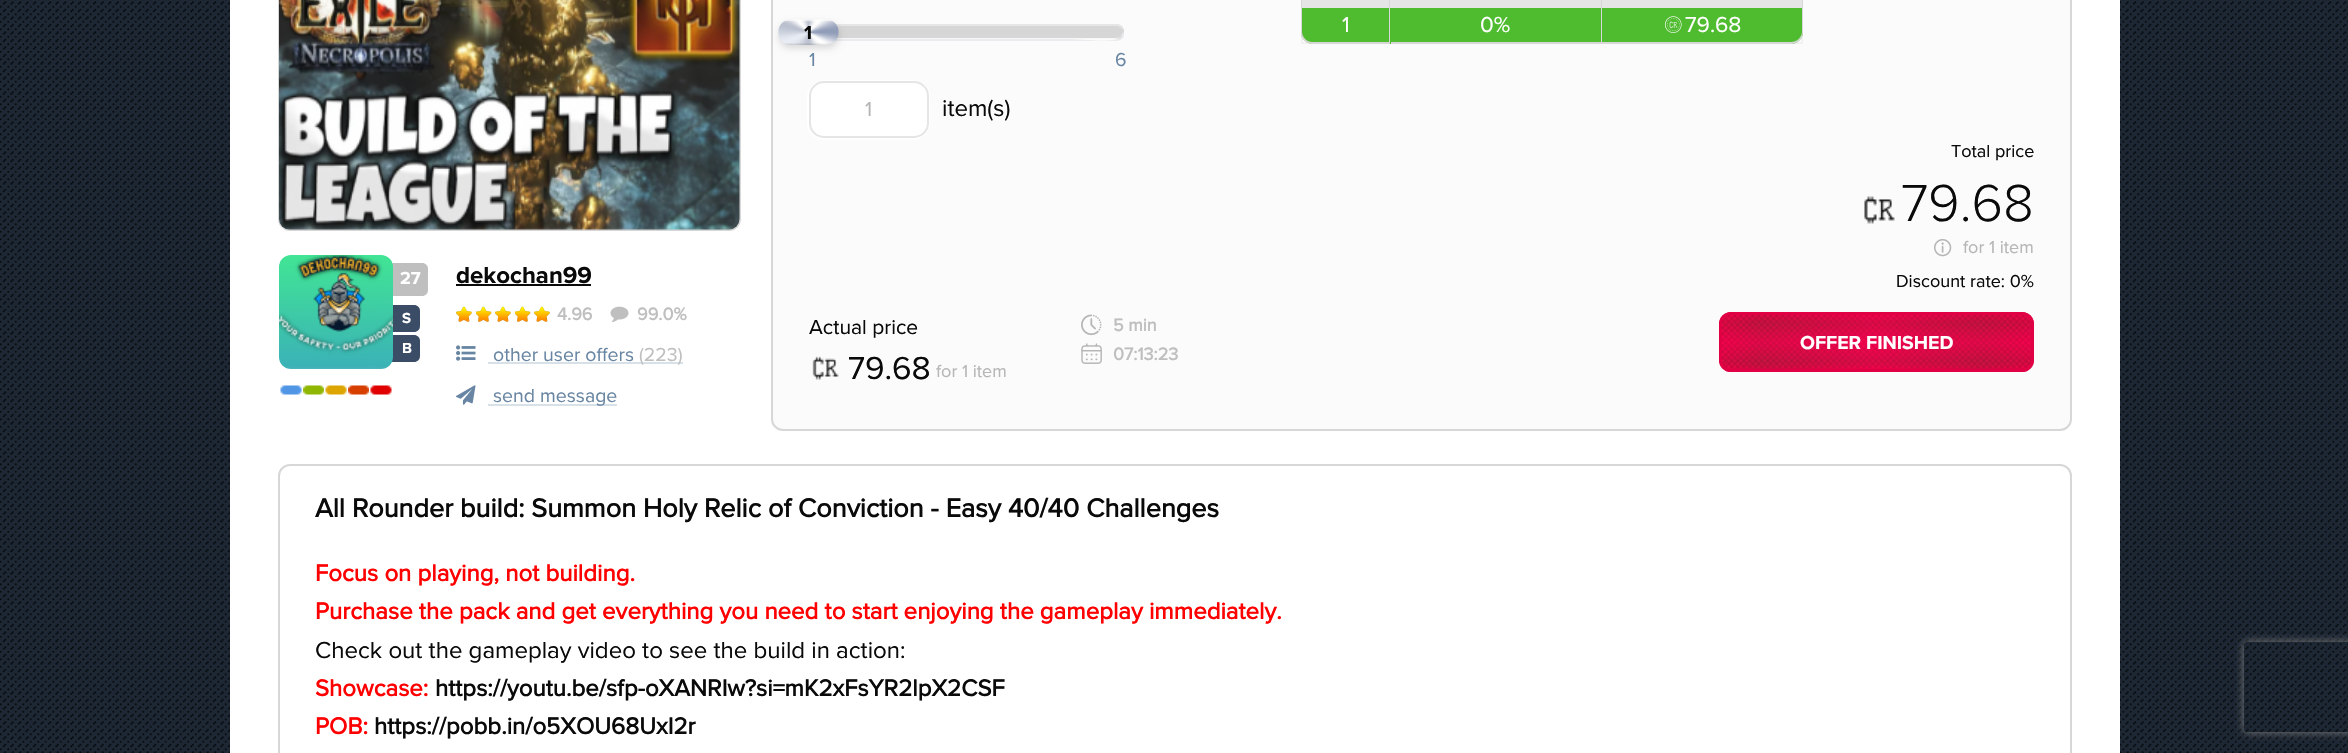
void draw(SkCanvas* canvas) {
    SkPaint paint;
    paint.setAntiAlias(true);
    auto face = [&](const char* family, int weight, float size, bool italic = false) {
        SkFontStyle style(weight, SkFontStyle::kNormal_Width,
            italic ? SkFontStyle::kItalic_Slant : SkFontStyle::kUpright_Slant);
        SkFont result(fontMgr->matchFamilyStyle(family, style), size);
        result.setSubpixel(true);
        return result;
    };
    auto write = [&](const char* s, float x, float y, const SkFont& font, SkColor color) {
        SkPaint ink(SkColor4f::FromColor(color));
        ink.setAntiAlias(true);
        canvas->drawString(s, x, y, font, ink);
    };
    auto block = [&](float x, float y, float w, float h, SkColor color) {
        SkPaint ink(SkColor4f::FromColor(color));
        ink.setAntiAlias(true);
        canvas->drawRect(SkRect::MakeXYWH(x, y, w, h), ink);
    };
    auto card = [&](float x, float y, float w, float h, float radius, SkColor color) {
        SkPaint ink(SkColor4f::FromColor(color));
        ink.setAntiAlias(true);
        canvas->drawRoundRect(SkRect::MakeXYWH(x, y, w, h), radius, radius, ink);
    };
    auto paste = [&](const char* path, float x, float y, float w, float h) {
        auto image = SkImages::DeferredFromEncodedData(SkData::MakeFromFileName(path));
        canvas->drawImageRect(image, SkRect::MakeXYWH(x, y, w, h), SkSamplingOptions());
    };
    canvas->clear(SK_ColorWHITE);
    paste("pic1.png", 0, 0, 2348, 753);
    block(230, 0, 1890, 753, SK_ColorWHITE);
    paint.setStyle(SkPaint::kStroke_Style);
    paint.setStrokeWidth(2);
    paint.setColor(SkColorSetRGB(215, 215, 215));
    canvas->drawRoundRect(SkRect::MakeXYWH(279, -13, 461, 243), 11, 11, paint);
    paste("pic2.png", 279, 0, 461, 230);
    paint.setStyle(SkPaint::kFill_Style);
    paint.setColor(SkColorSetRGB(191, 191, 191));
    canvas->drawPath(SkPathBuilder().moveTo(386, 263).lineTo(422, 263).cubicTo(425.5f, 263, 428, 265.5f, 428, 269).lineTo(428, 290).cubicTo(428, 293.5f, 425.5f, 296, 422, 296).lineTo(386, 296).close().detach(), paint);
    paint.setColor(SkColorSetRGB(59, 77, 102));
    canvas->drawPath(SkPathBuilder().moveTo(386, 305).lineTo(414, 305).cubicTo(417.5f, 305, 420, 307.5f, 420, 311).lineTo(420, 326).cubicTo(420, 329.5f, 417.5f, 332, 414, 332).lineTo(386, 332).close().detach(), paint);
    canvas->drawPath(SkPathBuilder().moveTo(386, 335).lineTo(414, 335).cubicTo(417.5f, 335, 420, 337.5f, 420, 341).lineTo(420, 356).cubicTo(420, 359.5f, 417.5f, 362, 414, 362).lineTo(386, 362).close().detach(), paint);
    paste("pic3.png", 279, 255, 114, 114);
    auto kFont1 = face("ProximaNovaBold", 400, 18);
    write("27", 400, 284, kFont1, SK_ColorWHITE);
    auto kFont2 = face("ProximaNovaBold", 400, 15);
    write("S", 402, 323, kFont2, SK_ColorWHITE);
    write("B", 402, 353, kFont2, SK_ColorWHITE);
    paste("pic4.png", 280, 385, 22, 10);
    paste("pic5.png", 303, 385, 21, 10);
    paste("pic6.png", 325, 385, 22, 10);
    paste("pic7.png", 348, 385, 21, 10);
    paste("pic8.png", 370, 385, 22, 10);
    auto kFont3 = face("ProximaNovaBold", 400, 24);
    write("dekochan99", 456, 283, kFont3, SkColorSetRGB(10, 10, 10));
    block(456, 284, 135, 2, SkColorSetRGB(10, 10, 10));
    paste("pic9.png", 456, 306, 16, 16);
    paste("pic10.png", 476, 306, 16, 16);
    paste("pic9.png", 495, 306, 16, 16);
    paste("pic10.png", 515, 306, 16, 16);
    paste("pic9.png", 534, 306, 16, 16);
    auto kFont4 = face("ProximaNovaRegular", 700, 18);
    write("4.96", 557, 320, kFont4, SkColorSetRGB(191, 191, 191));
    paste("pic11.png", 610, 306, 19, 16);
    write("99.0%", 637, 320, kFont4, SkColorSetRGB(191, 191, 191));
    paste("pic12.png", 456, 345, 20, 16);
    auto kFont5 = face("ProximaNovaRegular", 400, 19.5f);
    write("other user offers", 493, 361, kFont5, SkColorSetRGB(104, 134, 163));
    block(488, 362, 195, 2, SkColorSetRGB(217, 225, 232));
    write("(223)", 639, 361, kFont5, SkColorSetRGB(191, 191, 191));
    paste("pic13.png", 456, 385, 20, 20);
    block(488, 404, 129, 2, SkColorSetRGB(217, 225, 232));
    write("send message", 493, 402, kFont5, SkColorSetRGB(104, 134, 163));
    paint.setColor(SkColorSetRGB(251, 251, 251));
    canvas->drawRoundRect(SkRect::MakeXYWH(772, -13, 1299, 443), 11, 11, paint);
    paint.setStyle(SkPaint::kStroke_Style);
    paint.setColor(SkColorSetRGB(215, 215, 215));
    canvas->drawRoundRect(SkRect::MakeXYWH(772, -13, 1299, 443), 11, 11, paint);
    paint.setStyle(SkPaint::kFill_Style);
    paint.setColor(SkColorSetRGB(233, 235, 238));
    canvas->drawPath(SkPathBuilder().moveTo(809, 34).cubicTo(809, 38, 813, 41, 816, 41).lineTo(1116, 41).cubicTo(1121, 41, 1124, 38, 1124, 34).lineTo(1123, 31).cubicTo(1125, 46, 1086, 39, 1066, 39).lineTo(816, 39).cubicTo(813, 39, 810, 37, 809, 34).close().detach(), paint);
    card(809, 24, 315, 15, 7.5f, SkColorSetRGB(214, 214, 214));
    paint.setColor(SkColorSetARGB(102, 255, 255, 255));
    canvas->drawPath(SkPathBuilder(SkPathFillType::kEvenOdd).moveTo(816, 24).cubicTo(811, 24, 808, 28, 808, 32).lineTo(809, 32).cubicTo(809, 29, 811, 26, 816, 26).lineTo(1116, 26).cubicTo(1119, 26, 1122, 28, 1123, 30).cubicTo(1123, 27, 1120, 24, 1116, 24).close().moveTo(1123, 32).lineTo(1123, 30).close().detach(), paint);
    paint.setColor(SkColorSetARGB(204, 255, 255, 255));
    canvas->drawPath(SkPathBuilder().moveTo(816, 39).lineTo(1116, 39).lineTo(1120, 37).cubicTo(1122, 36, 1124, 34, 1123, 32).cubicTo(1123, 35, 1119, 38, 1116, 38).lineTo(816, 38).cubicTo(813, 38, 808, 35, 809, 32).lineTo(808, 32).cubicTo(808, 36, 812, 39, 816, 39).close().detach(), paint);
    paint.setColor(SkColorSetARGB(36, 0, 0, 0));
    paint.setMaskFilter(SkMaskFilter::MakeBlur(kNormal_SkBlurStyle, 3.5f));
    canvas->drawRoundRect(SkRect::MakeXYWH(779, 23, 60, 25), 12, 12, paint);
    paint.setMaskFilter(nullptr);
    paste("pic14.png", 778, 19, 61, 26);
    auto kFont6 = face("ProximaNovaBold", 400, 19.5f);
    write("1", 804, 39, kFont6, SkColorSetRGB(10, 10, 10));
    write("1", 809, 66, kFont5, SkColorSetRGB(104, 134, 163));
    write("6", 1115, 66, kFont5, SkColorSetRGB(104, 134, 163));
    paint.setStyle(SkPaint::kStroke_Style);
    paint.setColor(SK_ColorWHITE);
    canvas->drawRoundRect(SkRect::MakeXYWH(808, 81, 121, 58), 16, 16, paint);
    paint.setStyle(SkPaint::kFill_Style);
    canvas->drawRoundRect(SkRect::MakeXYWH(810, 82, 118, 55), 14, 14, paint);
    paint.setStyle(SkPaint::kStroke_Style);
    paint.setColor(SkColorSetRGB(229, 229, 229));
    canvas->drawRoundRect(SkRect::MakeXYWH(810, 82, 118, 55), 14, 14, paint);
    auto kFont7 = face("ProximaNovaRegular", 400, 21);
    write("1", 865, 116, kFont7, SkColorSetRGB(183, 182, 182));
    auto kFont8 = face("ProximaNovaRegular", 400, 24);
    write("item(s)", 942, 116, kFont8, SkColorSetRGB(10, 10, 10));
    block(1301, 0, 502, 8, SkColorSetRGB(229, 229, 229));
    canvas->save();
    canvas->clipRect(SkRect::MakeXYWH(1301, 0, 502, 44));
    paint.setStyle(SkPaint::kFill_Style);
    paint.setColor(SkColorSetRGB(215, 215, 215));
    canvas->drawPath(SkPathBuilder(SkPathFillType::kEvenOdd).moveTo(1312, -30).lineTo(1390, -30).lineTo(1390, 8).lineTo(1300, 8).lineTo(1300, -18).cubicTo(1300, -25, 1306, -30, 1312, -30).close().moveTo(1312, -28).lineTo(1389, -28).lineTo(1389, 8).lineTo(1302, 8).lineTo(1302, -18).cubicTo(1302, -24, 1307, -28, 1312, -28).close().detach(), paint);
    canvas->restore();
    block(1601, 0, 1, 8, SkColorSetRGB(215, 215, 215));
    canvas->drawPath(SkPathBuilder(SkPathFillType::kEvenOdd).moveTo(1602, -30).lineTo(1791, -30).cubicTo(1798, -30, 1803, -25, 1803, -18).lineTo(1803, 8).lineTo(1602, 8).close().moveTo(1602, -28).lineTo(1791, -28).cubicTo(1797, -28, 1802, -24, 1802, -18).lineTo(1802, 8).lineTo(1602, 8).close().detach(), paint);
    block(1303, 38, 498, 4, SK_ColorWHITE);
    paint.setStyle(SkPaint::kStroke_Style);
    paint.setColor(SkColorSetRGB(242, 242, 242));
    canvas->drawRect(SkRect::MakeXYWH(1302, 9, 500, 34), paint);
    paint.setStyle(SkPaint::kFill_Style);
    paint.setColor(SkColorSetRGB(79, 187, 46));
    canvas->drawPath(SkPathBuilder().moveTo(1301, 8).lineTo(1391, 8).lineTo(1391, 44).lineTo(1313, 44).cubicTo(1306.5f, 44, 1301, 38.5f, 1301, 32).close().detach(), paint);
    canvas->save();
    canvas->clipRect(SkRect::MakeXYWH(1301, 0, 502, 44));
    paint.setColor(SkColorSetRGB(215, 215, 215));
    canvas->drawPath(SkPathBuilder(SkPathFillType::kEvenOdd).moveTo(1300, 8).lineTo(1390, 8).lineTo(1390, 44).lineTo(1312, 44).cubicTo(1306, 44, 1300, 38, 1300, 32).close().moveTo(1302, 8).lineTo(1389, 8).lineTo(1389, 42).lineTo(1312, 42).cubicTo(1307, 42, 1302, 37, 1302, 32).close().detach(), paint);
    canvas->restore();
    auto kFont9 = face("ProximaNovaRegular", 400, 22.5f);
    write("1", 1342, 32, kFont9, SK_ColorWHITE);
    block(1391, 8, 210, 34, SkColorSetRGB(79, 187, 46));
    block(1601, 8, 1, 36, SkColorSetRGB(215, 215, 215));
    block(1391, 42, 211, 2, SkColorSetRGB(215, 215, 215));
    write("0%", 1480, 32, kFont9, SK_ColorWHITE);
    paint.setColor(SkColorSetRGB(79, 187, 46));
    canvas->drawPath(SkPathBuilder().moveTo(1602, 8).lineTo(1803, 8).lineTo(1803, 32).cubicTo(1803, 38.5f, 1797.5f, 44, 1791, 44).lineTo(1602, 44).close().detach(), paint);
    paint.setColor(SkColorSetRGB(215, 215, 215));
    canvas->drawPath(SkPathBuilder(SkPathFillType::kEvenOdd).moveTo(1602, 8).lineTo(1803, 8).lineTo(1803, 32).cubicTo(1803, 38, 1798, 44, 1791, 44).lineTo(1602, 44).close().moveTo(1602, 8).lineTo(1802, 8).lineTo(1802, 32).cubicTo(1802, 37, 1797, 42, 1791, 42).lineTo(1602, 42).close().detach(), paint);
    paste("pic15.png", 1664, 16, 18, 17);
    write("79.68", 1685, 32, kFont9, SK_ColorWHITE);
    auto kFont10 = face("ProximaNovaRegular", 400, 18);
    write("Total price", 1951, 157, kFont10, SkColorSetRGB(10, 10, 10));
    paste("pic16.png", 1864, 196, 31, 28);
    auto kFont11 = face("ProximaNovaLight", 400, 54);
    write("79.68", 1901, 221, kFont11, SkColorSetRGB(10, 10, 10));
    paste("pic17.png", 1934, 239, 18, 18);
    write("for 1 item", 1963, 253, kFont10, SkColorSetRGB(183, 182, 182));
    write("Discount rate: 0%", 1896, 287, kFont10, SkColorSetRGB(10, 10, 10));
    write("Actual price", 809, 334, kFont7, SkColorSetRGB(10, 10, 10));
    paste("pic18.png", 812, 356, 27, 24);
    auto kFont12 = face("ProximaNovaRegular", 400, 33);
    write("79.68", 848, 379, kFont12, SkColorSetRGB(10, 10, 10));
    write("for 1 item", 936, 377, kFont10, SkColorSetRGB(183, 182, 182));
    paste("pic19.png", 1081, 314, 21, 22);
    write("5 min", 1113, 331, kFont4, SkColorSetRGB(191, 191, 191));
    paste("pic20.png", 1081, 343, 21, 21);
    write("07:13:23", 1113, 360, kFont4, SkColorSetRGB(191, 191, 191));
    paste("pic21.png", 1719, 312, 315, 60);
    paint.setStyle(SkPaint::kStroke_Style);
    paint.setStrokeWidth(3);
    paint.setColor(SkColorSetRGB(226, 0, 69));
    canvas->drawRoundRect(SkRect::MakeXYWH(1720.5f, 313.5f, 312, 57), 10.5f, 10.5f, paint);
    write("OFFER FINISHED", 1800, 349, kFont6, SK_ColorWHITE);
    paint.setStrokeWidth(2);
    paint.setColor(SkColorSetRGB(215, 215, 215));
    canvas->drawRoundRect(SkRect::MakeXYWH(279, 465, 1792, 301), 11, 11, paint);
    auto kFont13 = face("ProximaNovaRegular", 700, 27);
    write("All Rounder build: Summon Holy Relic of Conviction - Easy 40/40 Challenges", 315, 517, kFont13, SkColorSetRGB(10, 10, 10));
    auto kFont14 = face("ProximaNovaRegular", 700, 24);
    write("Focus on playing, not building.", 315, 581, kFont14, SkColorSetRGB(255, 0, 0));
    write("Purchase the pack and get everything you need to start enjoying the gameplay immediately.", 315, 619, kFont14, SkColorSetRGB(255, 0, 0));
    write("Check out the gameplay video to see the build in action:", 315, 658, kFont8, SkColorSetRGB(10, 10, 10));
    write("Showcase:", 315, 696, kFont14, SkColorSetRGB(255, 0, 0));
    write("https://youtu.be/sfp-oXANRIw?si=mK2xFsYR2lpX2CSF", 435, 696, kFont14, SkColorSetRGB(10, 10, 10));
    write("POB:", 315, 734, kFont14, SkColorSetRGB(255, 0, 0));
    write("https://pobb.in/o5XOU68UxI2r", 374, 734, kFont14, SkColorSetRGB(10, 10, 10));
    canvas->save();
    canvas->clipPath(SkPathBuilder(SkPathFillType::kEvenOdd).moveTo(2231, 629).lineTo(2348, 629).lineTo(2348, 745).lineTo(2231, 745).close().moveTo(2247, 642).lineTo(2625, 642).cubicTo(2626.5f, 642, 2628, 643.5f, 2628, 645).lineTo(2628, 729).cubicTo(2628, 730.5f, 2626.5f, 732, 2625, 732).lineTo(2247, 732).cubicTo(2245.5f, 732, 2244, 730.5f, 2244, 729).lineTo(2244, 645).cubicTo(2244, 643.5f, 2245.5f, 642, 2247, 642).close().detach(), true);
    paint.setStyle(SkPaint::kFill_Style);
    paint.setColor(SkColorSetRGB(128, 128, 128));
    paint.setMaskFilter(SkMaskFilter::MakeBlur(kNormal_SkBlurStyle, 4));
    canvas->drawRoundRect(SkRect::MakeXYWH(2244, 642, 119, 90), 3, 3, paint);
    paint.setMaskFilter(nullptr);
    canvas->restore();
}
